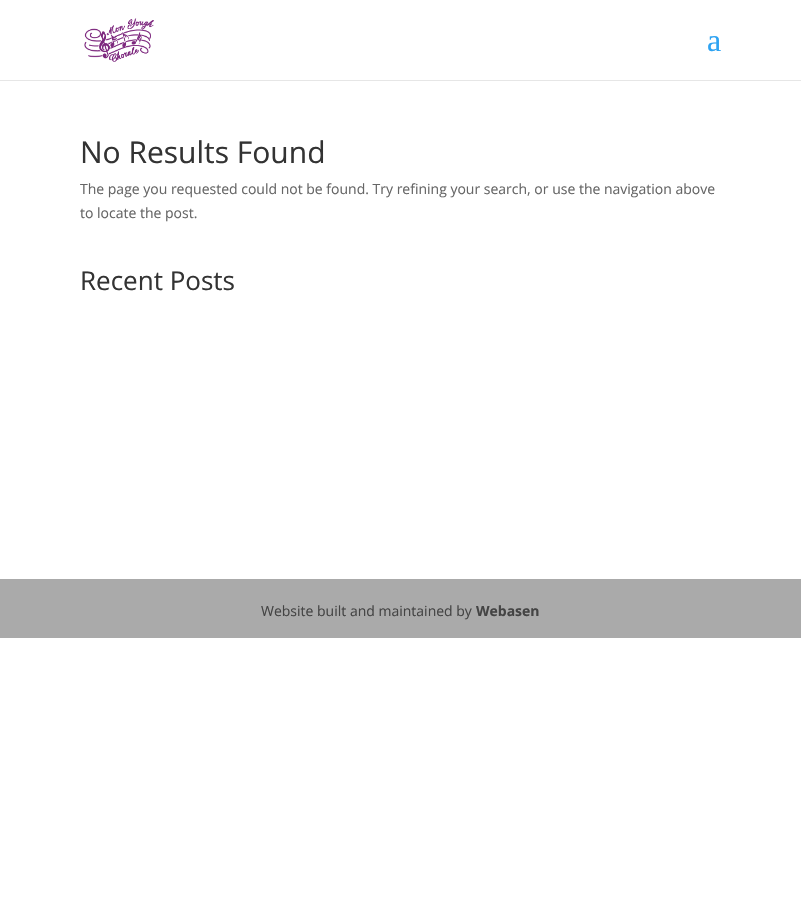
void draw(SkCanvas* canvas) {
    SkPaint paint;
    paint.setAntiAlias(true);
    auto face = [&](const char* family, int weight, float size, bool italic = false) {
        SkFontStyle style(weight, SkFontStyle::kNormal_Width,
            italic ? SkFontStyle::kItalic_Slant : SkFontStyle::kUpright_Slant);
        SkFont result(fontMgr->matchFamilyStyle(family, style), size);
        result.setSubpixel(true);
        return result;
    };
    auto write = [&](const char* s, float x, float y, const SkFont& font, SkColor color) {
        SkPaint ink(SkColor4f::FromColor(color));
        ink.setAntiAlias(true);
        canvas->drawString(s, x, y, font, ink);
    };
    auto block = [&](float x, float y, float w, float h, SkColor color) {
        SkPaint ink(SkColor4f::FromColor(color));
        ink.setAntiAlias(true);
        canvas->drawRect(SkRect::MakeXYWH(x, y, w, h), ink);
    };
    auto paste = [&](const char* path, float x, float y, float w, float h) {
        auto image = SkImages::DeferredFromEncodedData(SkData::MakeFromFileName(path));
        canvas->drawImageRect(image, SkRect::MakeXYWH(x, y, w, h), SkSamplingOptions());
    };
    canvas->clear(SK_ColorWHITE);
    block(0, 80, 801, 1, SkColorSetRGB(230, 230, 230));
    paste("pic1.png", 84, 18, 70, 44);
    auto kFont1 = face("Liberation Serif", 400, 32);
    write("a", 707, 51, kFont1, SkColorSetRGB(46, 163, 242));
    auto kFont2 = face("Open Sans", 400, 30);
    write("No Results Found", 80, 163, kFont2, SkColorSetRGB(51, 51, 51));
    auto kFont3 = face("Open Sans", 400, 14);
    write("The page you requested could not be found. Try refining your search, or use the navigation above", 80, 194, kFont3, SkColorSetRGB(102, 102, 102));
    write("to locate the post.", 80, 218, kFont3, SkColorSetRGB(102, 102, 102));
    auto kFont4 = face("Open Sans", 400, 26);
    write("Recent Posts", 80, 290, kFont4, SkColorSetRGB(51, 51, 51));
    block(0, 579, 801, 59, SkColorSetRGB(170, 170, 170));
    write("Website built and maintained by", 261, 616, kFont3, SkColorSetRGB(68, 68, 68));
    auto kFont5 = face("Open Sans", 700, 14);
    write("Webasen", 476, 616, kFont5, SkColorSetRGB(68, 68, 68));
}
